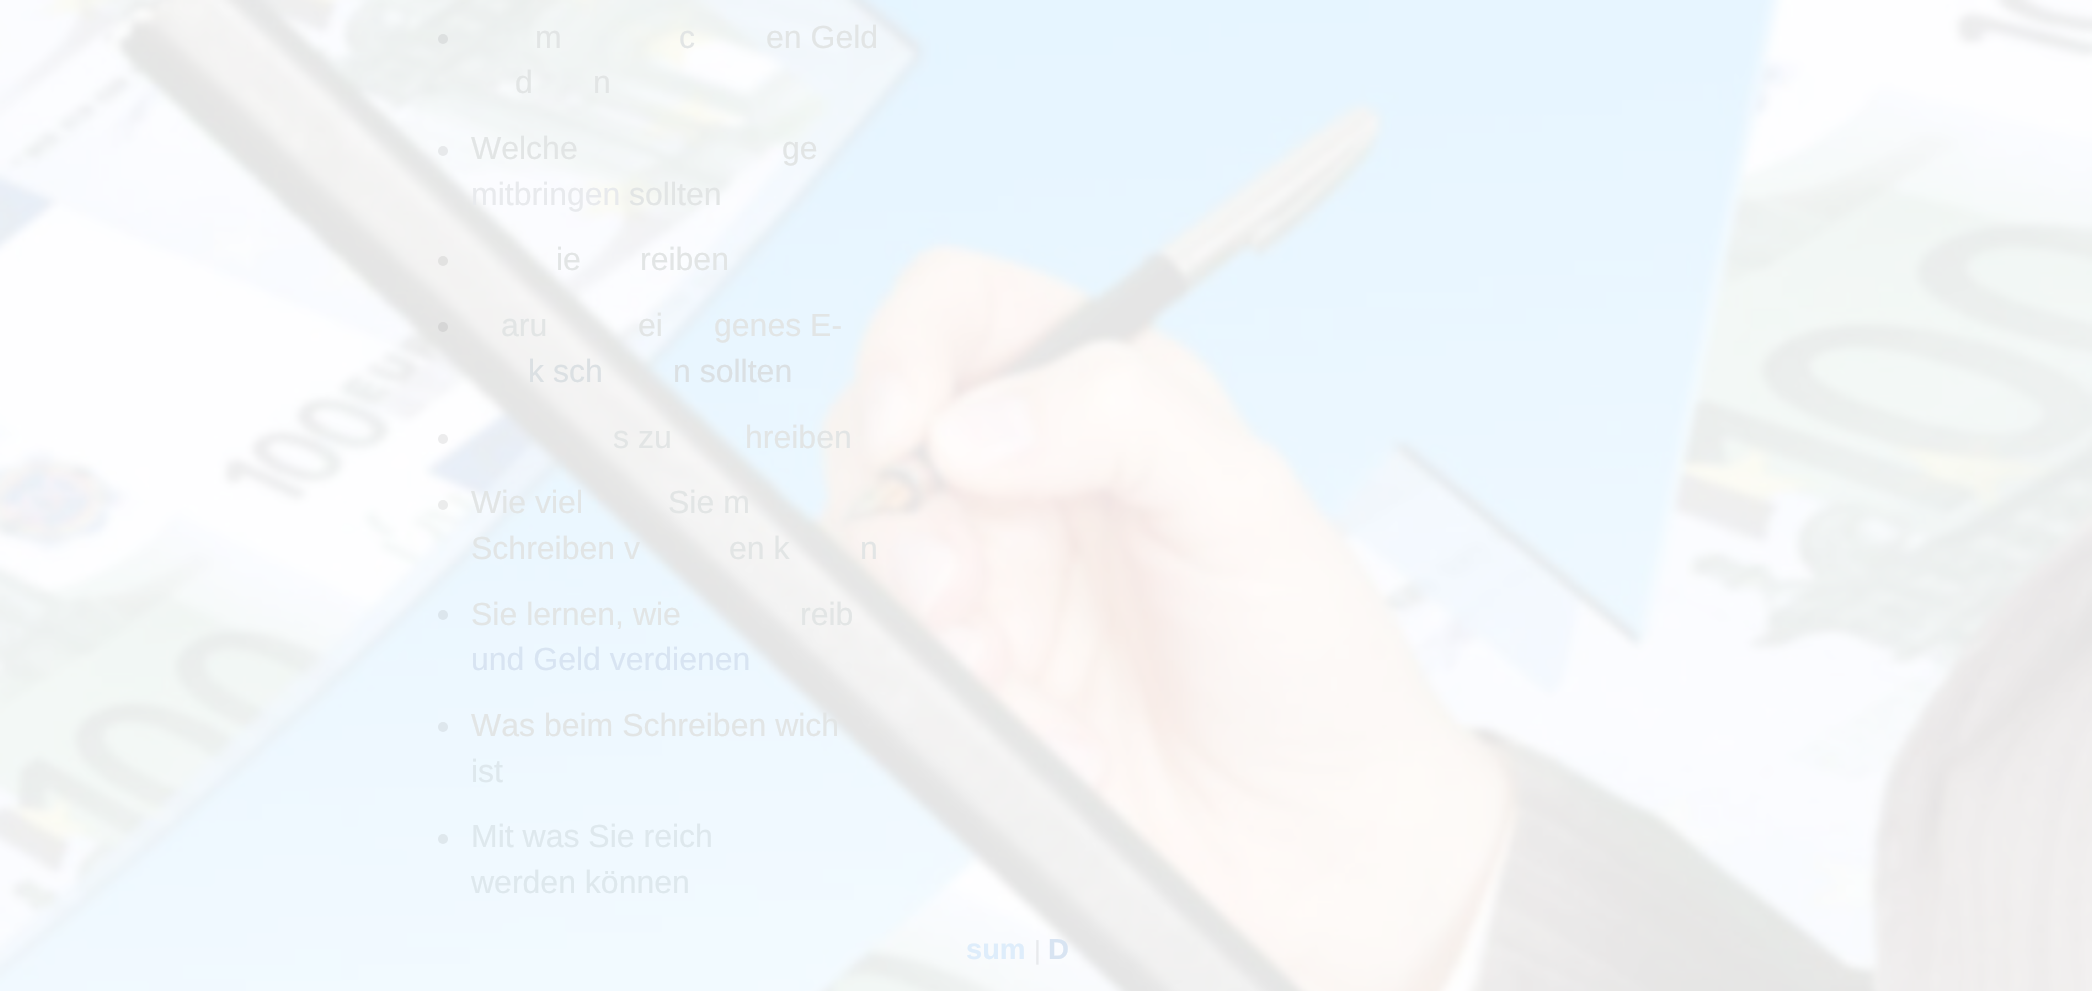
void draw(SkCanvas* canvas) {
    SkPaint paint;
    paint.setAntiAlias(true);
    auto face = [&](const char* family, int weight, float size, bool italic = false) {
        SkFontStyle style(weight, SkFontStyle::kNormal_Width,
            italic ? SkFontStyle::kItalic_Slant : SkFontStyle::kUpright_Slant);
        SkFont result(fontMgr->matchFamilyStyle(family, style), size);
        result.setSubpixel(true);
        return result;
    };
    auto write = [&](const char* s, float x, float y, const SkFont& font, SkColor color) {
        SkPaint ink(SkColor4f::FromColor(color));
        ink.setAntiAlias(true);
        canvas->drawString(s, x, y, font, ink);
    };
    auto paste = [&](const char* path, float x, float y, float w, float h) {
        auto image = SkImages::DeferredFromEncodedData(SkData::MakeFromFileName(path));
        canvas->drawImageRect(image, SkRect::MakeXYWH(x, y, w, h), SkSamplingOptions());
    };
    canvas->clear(SK_ColorWHITE);
    paste("pic1.png", 0, 0, 2092, 991);
    paint.setColor(SkColorSetRGB(221, 224, 224));
    canvas->drawCircle(443, 39, 5, paint);
    auto kFont1 = face("Liberation Sans", 400, 32);
    write("m", 535, 48, kFont1, SkColorSetRGB(226, 229, 229));
    write("c", 679, 48, kFont1, SkColorSetRGB(226, 229, 229));
    write("en Geld", 766, 48, kFont1, SkColorSetRGB(226, 229, 229));
    write("d", 515, 93, kFont1, SkColorSetRGB(226, 229, 229));
    write("n", 593, 93, kFont1, SkColorSetRGB(226, 229, 229));
    paint.setColor(SkColorSetRGB(231, 233, 235));
    canvas->drawCircle(443, 151, 5, paint);
    write("Welche", 471, 159, kFont1, SkColorSetRGB(226, 229, 229));
    write("ge", 782, 159, kFont1, SkColorSetRGB(226, 229, 229));
    write("mitbringen", 471, 205, kFont1, SkColorSetRGB(232, 234, 237));
    write("sollten", 629, 205, kFont1, SkColorSetRGB(226, 229, 229));
    paint.setColor(SkColorSetRGB(226, 226, 225));
    canvas->drawCircle(443, 261, 5, paint);
    write("ie", 556, 270, kFont1, SkColorSetRGB(226, 229, 229));
    write("reiben", 640, 270, kFont1, SkColorSetRGB(226, 229, 229));
    paint.setColor(SkColorSetRGB(214, 214, 214));
    canvas->drawCircle(443, 327, 5, paint);
    write("aru", 501, 336, kFont1, SkColorSetRGB(226, 229, 229));
    write("ei", 638, 336, kFont1, SkColorSetRGB(226, 229, 229));
    write("genes E-", 714, 336, kFont1, SkColorSetRGB(226, 229, 229));
    write("k sch", 528, 382, kFont1, SkColorSetRGB(219, 224, 227));
    write("n sollten", 673, 382, kFont1, SkColorSetRGB(219, 224, 227));
    paint.setColor(SkColorSetRGB(236, 236, 237));
    canvas->drawCircle(443, 439, 5, paint);
    write("s zu", 613, 448, kFont1, SkColorSetRGB(226, 229, 229));
    write("hreiben", 745, 448, kFont1, SkColorSetRGB(226, 229, 229));
    paint.setColor(SkColorSetRGB(235, 236, 236));
    canvas->drawCircle(443, 505, 5, paint);
    write("Wie viel", 471, 513, kFont1, SkColorSetRGB(226, 229, 229));
    write("Sie m", 668, 513, kFont1, SkColorSetRGB(226, 229, 229));
    write("Schreiben v", 471, 559, kFont1, SkColorSetRGB(226, 229, 229));
    write("en k", 729, 559, kFont1, SkColorSetRGB(226, 229, 229));
    write("n", 860, 559, kFont1, SkColorSetRGB(226, 229, 229));
    paint.setColor(SkColorSetRGB(220, 230, 237));
    canvas->drawCircle(443, 615, 5, paint);
    write("Sie lernen, wie", 471, 625, kFont1, SkColorSetRGB(226, 229, 229));
    write("reib", 800, 625, kFont1, SkColorSetRGB(226, 229, 229));
    write("und Geld verdienen", 471, 670, kFont1, SkColorSetRGB(216, 228, 242));
    paint.setColor(SkColorSetRGB(222, 231, 237));
    canvas->drawCircle(443, 727, 5, paint);
    write("Was beim Schreiben wich", 471, 736, kFont1, SkColorSetRGB(226, 229, 229));
    write("ist", 471, 782, kFont1, SkColorSetRGB(222, 232, 237));
    paint.setColor(SkColorSetRGB(223, 232, 237));
    canvas->drawCircle(443, 839, 5, paint);
    write("Mit was Sie reich", 471, 847, kFont1, SkColorSetRGB(222, 232, 237));
    write("werden können", 471, 893, kFont1, SkColorSetRGB(222, 232, 237));
    auto kFont2 = face("Liberation Sans", 700, 29);
    write("sum", 966, 959, kFont2, SkColorSetRGB(222, 237, 251));
    auto kFont3 = face("Liberation Sans", 400, 26);
    write("|", 1034, 959, kFont3, SkColorSetRGB(232, 234, 237));
    write("D", 1048, 959, kFont2, SkColorSetRGB(216, 228, 242));
}
